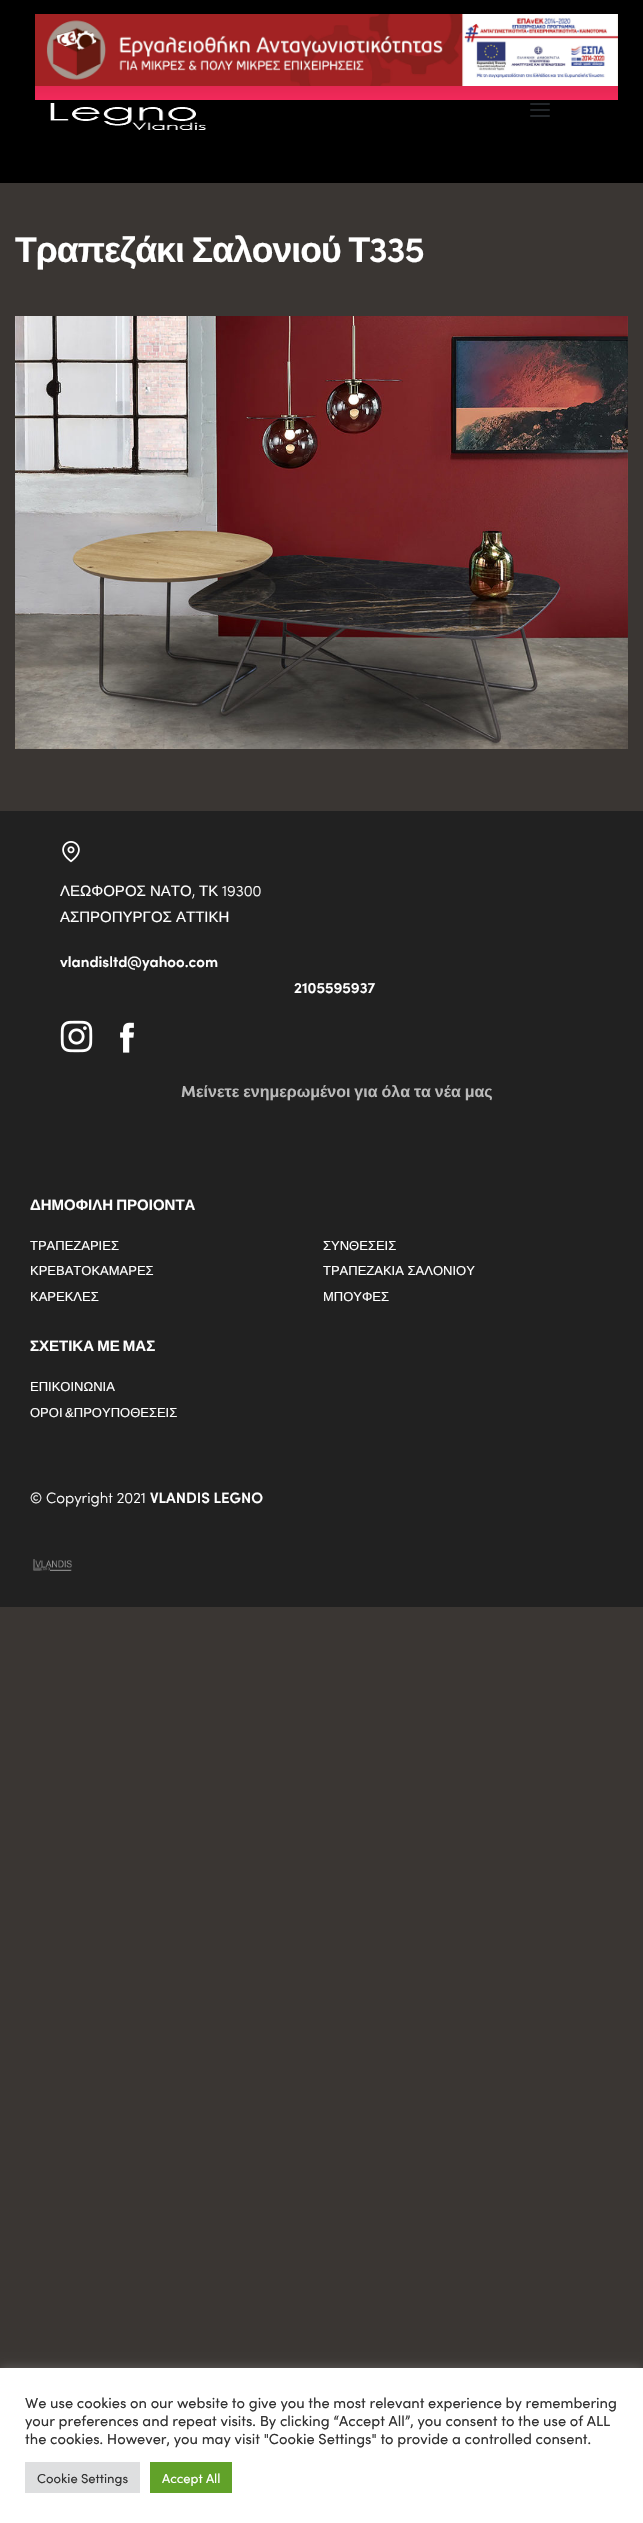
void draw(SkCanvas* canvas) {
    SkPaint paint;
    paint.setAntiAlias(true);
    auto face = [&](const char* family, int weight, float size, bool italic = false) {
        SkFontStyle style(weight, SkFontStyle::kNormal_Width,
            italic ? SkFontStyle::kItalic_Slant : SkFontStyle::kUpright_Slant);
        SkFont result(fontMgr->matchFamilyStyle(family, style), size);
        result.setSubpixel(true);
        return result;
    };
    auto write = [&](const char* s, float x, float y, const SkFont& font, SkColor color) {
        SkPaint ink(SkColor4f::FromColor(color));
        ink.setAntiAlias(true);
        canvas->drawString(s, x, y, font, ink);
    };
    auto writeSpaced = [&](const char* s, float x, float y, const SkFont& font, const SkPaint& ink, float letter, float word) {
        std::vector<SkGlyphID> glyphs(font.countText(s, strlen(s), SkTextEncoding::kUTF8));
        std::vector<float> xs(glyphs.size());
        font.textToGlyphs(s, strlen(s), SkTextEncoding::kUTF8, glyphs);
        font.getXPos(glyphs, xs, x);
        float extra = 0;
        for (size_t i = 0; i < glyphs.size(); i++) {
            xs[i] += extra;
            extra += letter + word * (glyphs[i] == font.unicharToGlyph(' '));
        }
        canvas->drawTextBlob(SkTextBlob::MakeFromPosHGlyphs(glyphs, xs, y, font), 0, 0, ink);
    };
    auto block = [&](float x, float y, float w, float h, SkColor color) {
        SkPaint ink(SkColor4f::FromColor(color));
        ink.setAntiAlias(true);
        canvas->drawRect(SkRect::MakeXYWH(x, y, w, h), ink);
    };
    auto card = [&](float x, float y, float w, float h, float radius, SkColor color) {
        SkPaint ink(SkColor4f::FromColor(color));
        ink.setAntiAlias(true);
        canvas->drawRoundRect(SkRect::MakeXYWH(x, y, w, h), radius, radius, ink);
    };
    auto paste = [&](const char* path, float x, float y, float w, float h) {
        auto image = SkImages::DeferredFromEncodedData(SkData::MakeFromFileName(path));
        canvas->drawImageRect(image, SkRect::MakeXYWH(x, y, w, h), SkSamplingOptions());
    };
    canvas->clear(SkColorSetRGB(58, 54, 51));
    block(0, 0, 643, 183, SK_ColorBLACK);
    {
        const SkColor colors[] = {SkColorSetRGB(161, 35, 35), SkColorSetRGB(242, 41, 91)};
        const float stops[] = {0, 1};
        const SkPoint ends[] = {{327, 14}, {327, 100}};
        paint.setShader(SkGradientShader::MakeLinear(ends, colors, stops, 2, SkTileMode::kClamp));
        paint.setAlpha(255);
    }
    canvas->drawRect(SkRect::MakeXYWH(35, 86, 583, 14), paint);
    paste("pic1.png", 35, 14, 583, 72);
    paste("pic2.png", 50, 103, 157, 27);
    card(530, 103, 20, 2, 1, SkColorSetRGB(34, 38, 42));
    card(530, 109, 20, 2, 1, SkColorSetRGB(34, 38, 42));
    card(530, 115, 20, 2, 1, SkColorSetRGB(34, 38, 42));
    auto kFont1 = face("Liberation Sans", 700, 35.6f);
    paint.setShader(nullptr);
    paint.setColor(SK_ColorWHITE);
    writeSpaced("Τραπεζάκι Σαλονιού Τ", 15, 262, kFont1, paint, -1, -1);
    auto kFont2 = face("Sofia", 600, 35.6f);
    writeSpaced("335", 369, 262, kFont2, paint, -1, 0);
    paste("pic3.png", 15, 316, 613, 433);
    block(0, 811, 643, 796, SkColorSetRGB(33, 33, 33));
    paste("pic4.png", 62, 841, 18, 22);
    auto kFont3 = face("Liberation Sans", 400, 15);
    write("ΛΕΩΦΟΡΟΣ ΝΑΤΟ", 60, 896, kFont3, SK_ColorWHITE);
    auto kFont4 = face("Sofia", 300, 15);
    write(",", 192, 896, kFont4, SK_ColorWHITE);
    write("ΤΚ", 199, 896, kFont3, SK_ColorWHITE);
    write("19300", 222, 896, kFont4, SK_ColorWHITE);
    write("ΑΣΠΡΟΠΥΡΓΟΣ ΑΤΤΙΚΗ", 60, 922, kFont3, SK_ColorWHITE);
    auto kFont5 = face("Sofia", 600, 15);
    write("vlandisltd@yahoo.com", 60, 967, kFont5, SK_ColorWHITE);
    write("2105595937", 294, 993, kFont5, SK_ColorWHITE);
    paste("pic5.png", 60, 1020, 33, 33);
    paste("pic6.png", 120, 1022, 14, 31);
    auto kFont6 = face("Sofia", 700, 16);
    write("M", 181, 1097, kFont6, SkColorSetRGB(186, 186, 186));
    auto kFont7 = face("Liberation Sans", 700, 16);
    paint.setColor(SkColorSetRGB(186, 186, 186));
    writeSpaced("είνετε ενημερωμένοι για όλα τα νέα μας", 196, 1097, kFont7, paint, 0, -0.5f);
    auto kFont8 = face("Liberation Sans", 700, 15);
    paint.setColor(SK_ColorWHITE);
    writeSpaced("ΔΗΜΟΦΙΛΗ ΠΡΟΙΟΝΤΑ", 30, 1210, kFont8, paint, 0, -1);
    auto kFont9 = face("Liberation Sans", 400, 13);
    write("ΤΡΑΠΕΖΑΡΙΕΣ", 30, 1250, kFont9, SK_ColorWHITE);
    write("ΣΥΝΘΕΣΕΙΣ", 323, 1250, kFont9, SK_ColorWHITE);
    write("ΚΡΕΒΑΤΟΚΑΜΑΡΕΣ", 30, 1275, kFont9, SK_ColorWHITE);
    write("ΤΡΑΠΕΖΑΚΙΑ ΣΑΛΟΝΙΟΥ", 323, 1275, kFont9, SK_ColorWHITE);
    write("ΚΑΡΕΚΛΕΣ", 30, 1301, kFont9, SK_ColorWHITE);
    write("ΜΠΟΥΦΕΣ", 323, 1301, kFont9, SK_ColorWHITE);
    writeSpaced("ΣΧΕΤΙΚΑ ΜΕ ΜΑΣ", 30, 1351, kFont8, paint, 0, -1);
    write("ΕΠΙΚΟΙΝΩΝΙΑ", 30, 1391, kFont9, SK_ColorWHITE);
    writeSpaced("ΟΡΟΙ &ΠΡΟΥΠΟΘΕΣΕΙΣ", 30, 1417, kFont9, paint, 0, -1);
    write("© Copyright 2021", 30, 1503, kFont4, SK_ColorWHITE);
    write("VLANDIS LEGNO", 150, 1503, kFont5, SK_ColorWHITE);
    paste("pic7.png", 33, 1559, 39, 12);
    paint.setColor(SkColorSetARGB(77, 172, 171, 171));
    paint.setMaskFilter(SkMaskFilter::MakeBlur(kNormal_SkBlurStyle, 5));
    canvas->drawRect(SkRect::MakeXYWH(0, 2367, 643, 155), paint);
    paint.setMaskFilter(nullptr);
    block(0, 2368, 643, 155, SK_ColorWHITE);
    auto kFont10 = face("Sofia", 400, 14.65f);
    write("We use cookies on our website to give you the most relevant experience by remembering", 25, 2408, kFont10, SkColorSetRGB(51, 51, 51));
    write("your preferences and repeat visits. By clicking “Accept All”, you consent to the use of ALL", 25, 2426, kFont10, SkColorSetRGB(51, 51, 51));
    write("the cookies. However, you may visit \"Cookie Settings\" to provide a controlled consent.", 25, 2444, kFont10, SkColorSetRGB(51, 51, 51));
    block(25, 2462, 115, 31, SkColorSetRGB(222, 223, 224));
    auto kFont11 = face("Sofia", 400, 13);
    write("Cookie Settings", 37, 2483, kFont11, SkColorSetRGB(51, 51, 51));
    block(150, 2462, 82, 31, SkColorSetRGB(97, 162, 41));
    write("Accept All", 162, 2483, kFont11, SK_ColorWHITE);
}
